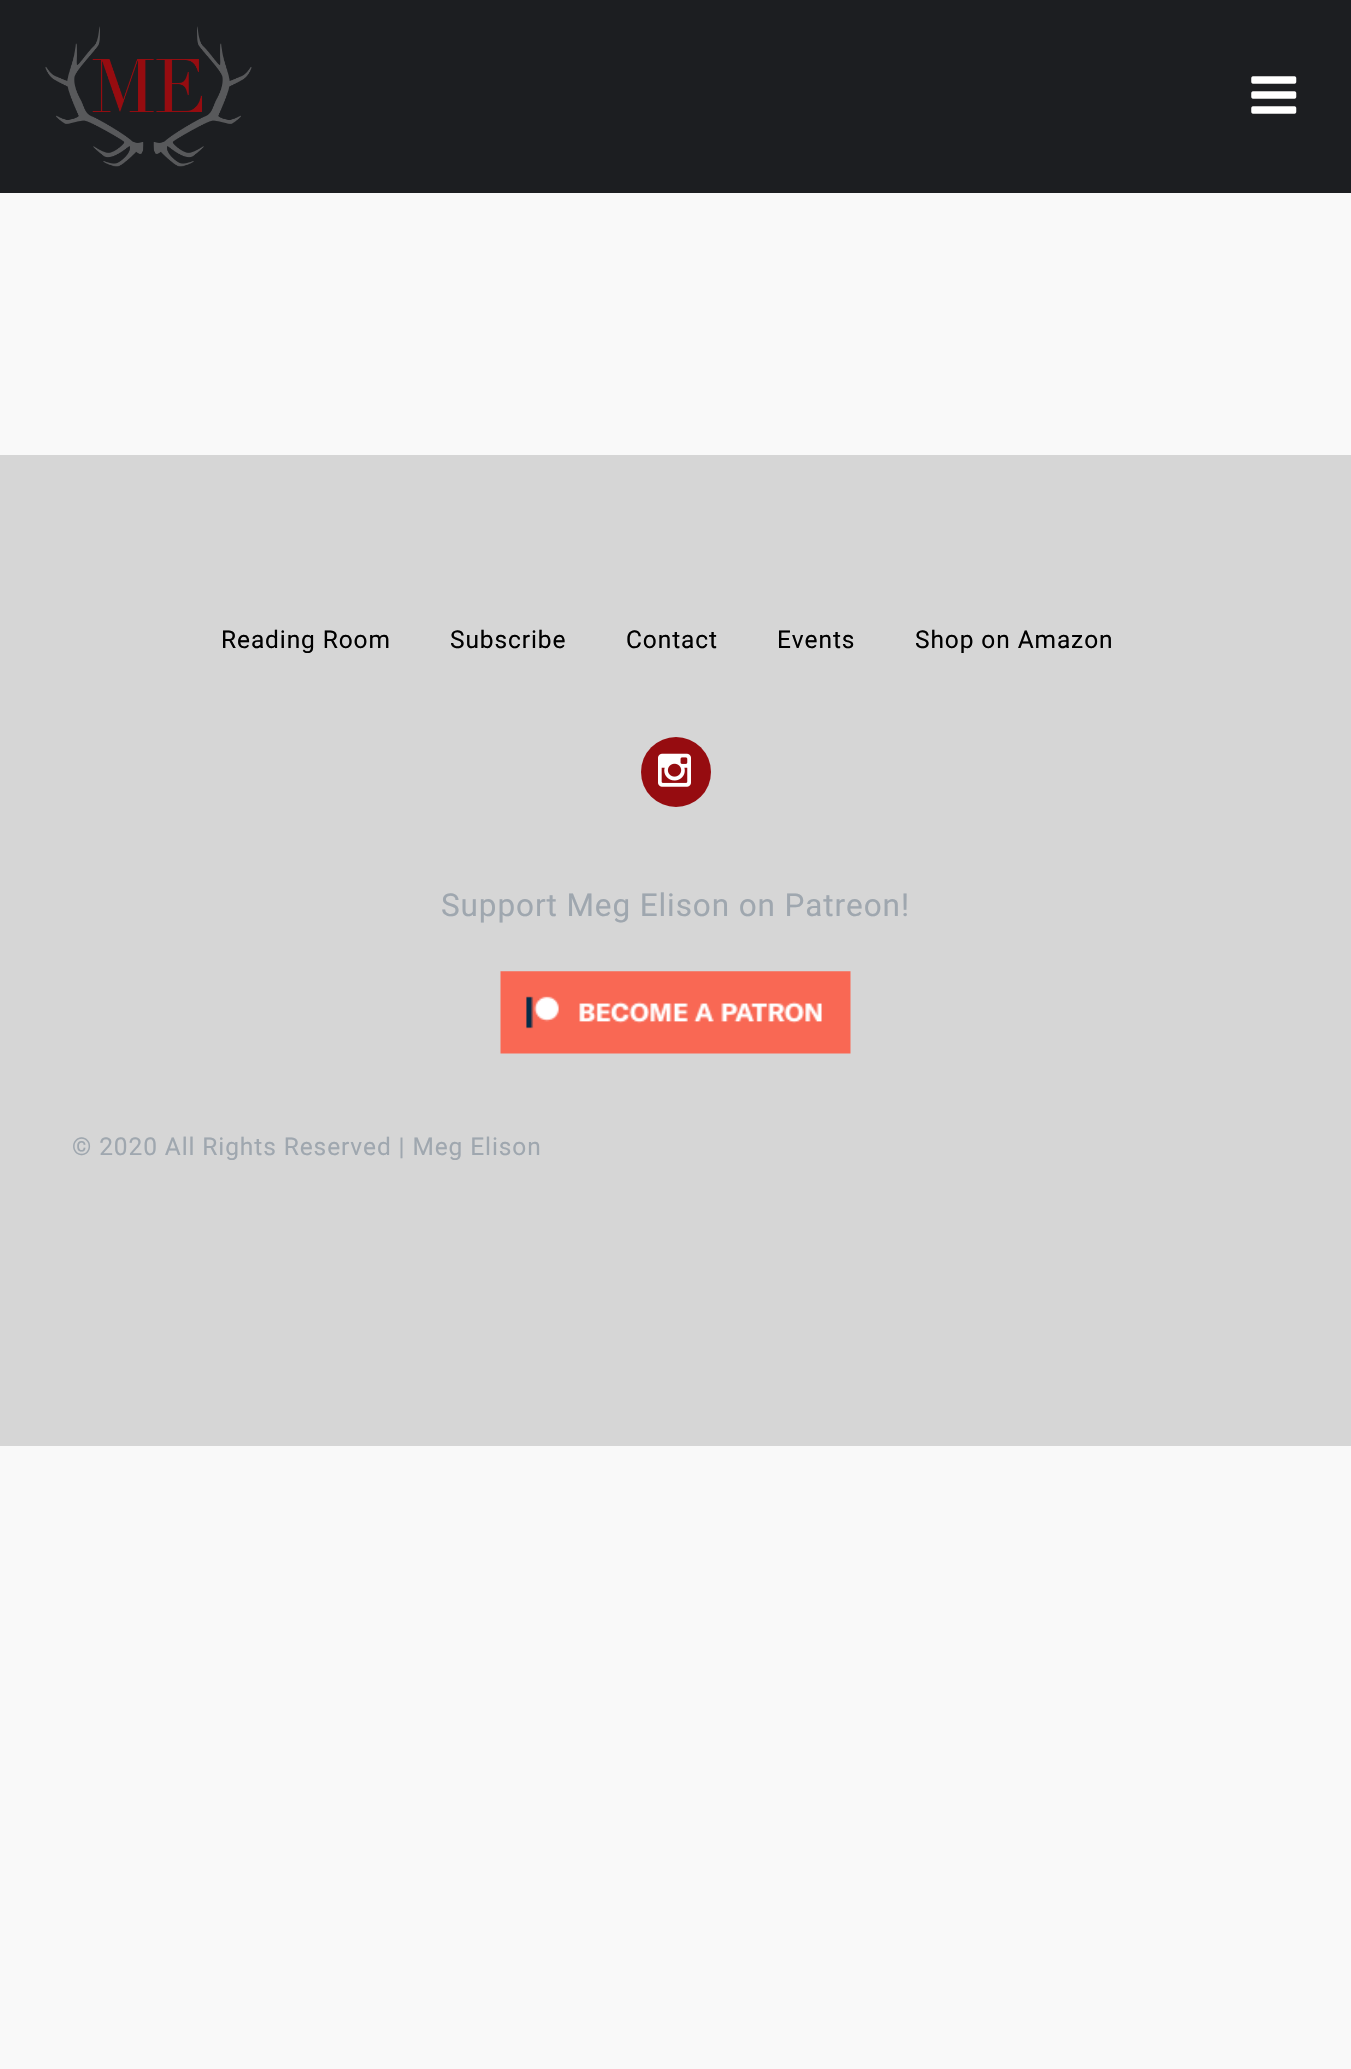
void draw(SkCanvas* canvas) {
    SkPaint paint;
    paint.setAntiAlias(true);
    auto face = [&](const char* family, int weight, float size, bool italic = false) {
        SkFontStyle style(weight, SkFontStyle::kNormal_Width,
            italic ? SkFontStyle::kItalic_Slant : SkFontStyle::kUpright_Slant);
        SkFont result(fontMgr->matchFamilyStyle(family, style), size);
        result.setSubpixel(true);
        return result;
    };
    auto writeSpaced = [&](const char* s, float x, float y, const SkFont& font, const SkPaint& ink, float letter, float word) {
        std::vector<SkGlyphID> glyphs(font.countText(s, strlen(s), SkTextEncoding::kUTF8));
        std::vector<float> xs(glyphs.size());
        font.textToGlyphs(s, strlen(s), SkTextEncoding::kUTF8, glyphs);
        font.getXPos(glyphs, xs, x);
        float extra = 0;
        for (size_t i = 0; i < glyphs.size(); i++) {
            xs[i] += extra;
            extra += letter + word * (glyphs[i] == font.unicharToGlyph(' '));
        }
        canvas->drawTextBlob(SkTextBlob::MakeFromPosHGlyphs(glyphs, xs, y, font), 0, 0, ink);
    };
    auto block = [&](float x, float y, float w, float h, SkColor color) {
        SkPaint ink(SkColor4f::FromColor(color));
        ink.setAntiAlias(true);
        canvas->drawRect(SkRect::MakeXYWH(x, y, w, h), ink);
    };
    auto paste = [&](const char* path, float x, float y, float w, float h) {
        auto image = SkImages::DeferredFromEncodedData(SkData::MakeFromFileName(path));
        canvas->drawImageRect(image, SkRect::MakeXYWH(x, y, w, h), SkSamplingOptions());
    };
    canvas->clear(SkColorSetRGB(249, 249, 249));
    block(0, 0, 1351, 193, SkColorSetRGB(28, 30, 33));
    paste("pic1.png", 45, 26, 207, 141);
    paste("pic2.png", 1251, 76, 46, 38);
    block(0, 455, 1351, 991, SkColorSetRGB(214, 214, 214));
    auto kFont1 = face("Roboto", 400, 24.5f);
    paint.setColor(SK_ColorBLACK);
    writeSpaced("Reading Room", 221, 648, kFont1, paint, 0.9f, 0);
    writeSpaced("Subscribe", 450, 648, kFont1, paint, 0.9f, 0);
    writeSpaced("Contact", 626, 648, kFont1, paint, 0.9f, 0);
    writeSpaced("Events", 777, 648, kFont1, paint, 0.9f, 0);
    writeSpaced("Shop on Amazon", 915, 648, kFont1, paint, 0.9f, 0);
    paint.setColor(SkColorSetRGB(150, 12, 16));
    canvas->drawCircle(676, 772, 35, paint);
    paste("pic3.png", 658, 753, 33, 34);
    auto kFont2 = face("Roboto", 400, 31.5f);
    paint.setColor(SkColorSetRGB(159, 167, 175));
    writeSpaced("Support Meg Elison on Patreon!", 441, 916, kFont2, paint, 0.9f, 0);
    paste("pic4.png", 500, 971, 351, 83);
    writeSpaced("© 2020 All Rights Reserved | Meg Elison", 72, 1155, kFont1, paint, 0.9f, 0);
}
